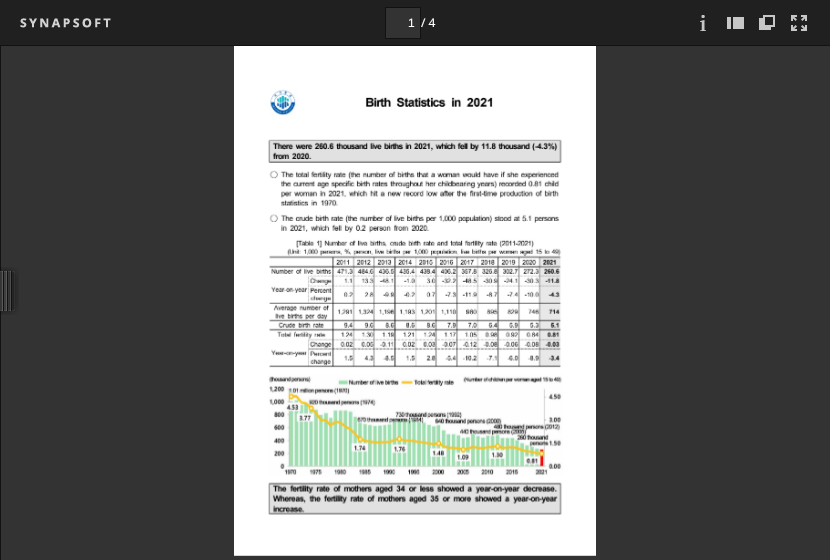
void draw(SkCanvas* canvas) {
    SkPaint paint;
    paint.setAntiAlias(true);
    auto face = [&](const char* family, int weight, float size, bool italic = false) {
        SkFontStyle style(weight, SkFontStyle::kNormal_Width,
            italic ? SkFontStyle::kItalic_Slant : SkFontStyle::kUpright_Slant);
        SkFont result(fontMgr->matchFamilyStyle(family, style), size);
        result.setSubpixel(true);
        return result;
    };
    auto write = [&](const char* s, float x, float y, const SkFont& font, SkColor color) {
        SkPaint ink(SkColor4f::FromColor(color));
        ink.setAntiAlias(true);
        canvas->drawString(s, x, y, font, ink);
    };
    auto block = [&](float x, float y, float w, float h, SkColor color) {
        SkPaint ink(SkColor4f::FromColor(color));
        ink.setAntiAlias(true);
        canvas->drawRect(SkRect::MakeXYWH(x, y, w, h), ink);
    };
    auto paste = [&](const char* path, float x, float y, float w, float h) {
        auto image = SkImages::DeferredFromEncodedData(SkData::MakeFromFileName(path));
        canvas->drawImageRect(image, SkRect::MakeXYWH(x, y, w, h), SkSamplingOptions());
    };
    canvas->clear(SkColorSetRGB(51, 51, 51));
    block(0, 0, 830, 45, SkColorSetRGB(32, 32, 32));
    block(0, 45, 1, 515, SkColorSetRGB(18, 18, 18));
    block(0, 45, 830, 1, SkColorSetRGB(18, 18, 18));
    paste("pic1.png", 20, 18, 91, 10);
    paint.setColor(SkColorSetRGB(51, 51, 51));
    canvas->drawRect(SkRect::MakeXYWH(385.5f, 7.5f, 35, 31), paint);
    paint.setStyle(SkPaint::kStroke_Style);
    paint.setStrokeWidth(1);
    paint.setColor(SkColorSetRGB(18, 18, 18));
    canvas->drawRect(SkRect::MakeXYWH(385.5f, 7.5f, 35, 31), paint);
    auto kFont1 = face("Liberation Sans", 400, 12);
    write("1", 408, 27, kFont1, SK_ColorWHITE);
    auto kFont2 = face("Noto Sans", 400, 12);
    write("/ 4", 421, 27, kFont2, SK_ColorWHITE);
    paste("pic2.png", 700, 15, 6, 16);
    paste("pic3.png", 727, 17, 17, 12);
    paste("pic4.png", 759, 15, 16, 15);
    paste("pic5.png", 791, 15, 16, 16);
    paste("pic6.png", 234, 46, 362, 510);
    paste("pic7.png", 0, 267, 19, 48);
}
